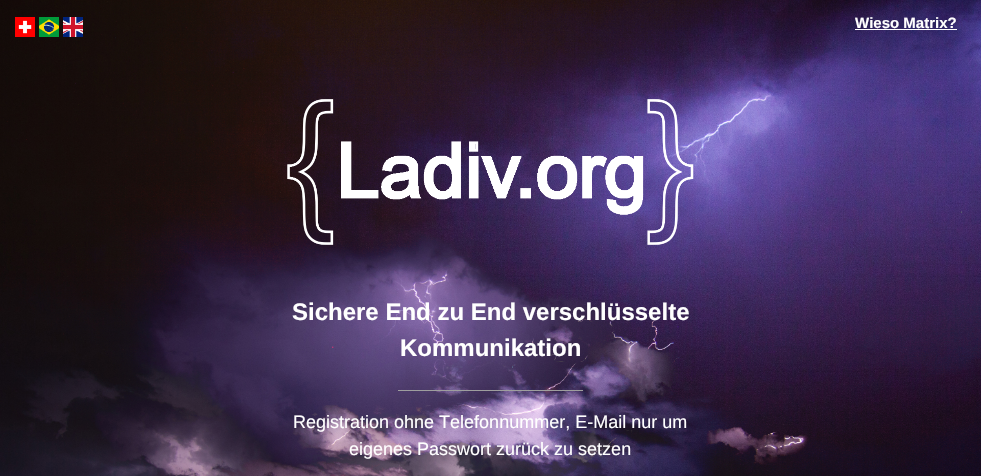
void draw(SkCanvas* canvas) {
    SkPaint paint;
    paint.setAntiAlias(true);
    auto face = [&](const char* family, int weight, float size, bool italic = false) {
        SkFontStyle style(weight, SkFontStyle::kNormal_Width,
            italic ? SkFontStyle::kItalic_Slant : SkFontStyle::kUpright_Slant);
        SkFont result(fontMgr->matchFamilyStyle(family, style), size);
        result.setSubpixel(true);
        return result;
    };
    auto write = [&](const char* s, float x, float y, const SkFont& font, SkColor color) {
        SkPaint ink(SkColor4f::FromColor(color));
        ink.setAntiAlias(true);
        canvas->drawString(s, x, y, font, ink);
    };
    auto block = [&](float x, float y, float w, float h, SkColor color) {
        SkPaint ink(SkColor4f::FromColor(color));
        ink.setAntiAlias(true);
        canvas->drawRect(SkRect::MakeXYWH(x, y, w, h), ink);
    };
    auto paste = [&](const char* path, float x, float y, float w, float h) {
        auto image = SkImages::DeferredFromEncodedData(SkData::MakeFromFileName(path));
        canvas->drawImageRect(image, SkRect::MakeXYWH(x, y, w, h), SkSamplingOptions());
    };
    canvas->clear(SK_ColorWHITE);
    paste("pic1.png", 0, 0, 981, 476);
    paste("pic2.png", 15, 17, 20, 20);
    paste("pic3.png", 39, 17, 20, 20);
    paste("pic4.png", 63, 17, 20, 20);
    auto kFont1 = face("Liberation Sans", 700, 15);
    write("Wieso Matrix?", 855, 28, kFont1, SK_ColorWHITE);
    block(855, 29, 102, 1, SK_ColorWHITE);
    paste("pic5.png", 287, 99, 407, 146);
    auto kFont2 = face("Liberation Sans", 700, 24);
    write("Sichere End zu End verschlüsselte", 292, 320, kFont2, SK_ColorWHITE);
    write("Kommunikation", 400, 356, kFont2, SK_ColorWHITE);
    block(398, 390, 185, 1, SkColorSetRGB(158, 158, 158));
    auto kFont3 = face("Liberation Sans", 400, 18);
    write("Registration ohne Telefonnummer, E-Mail nur um", 293, 428, kFont3, SK_ColorWHITE);
    write("eigenes Passwort zurück zu setzen", 349, 455, kFont3, SK_ColorWHITE);
}
